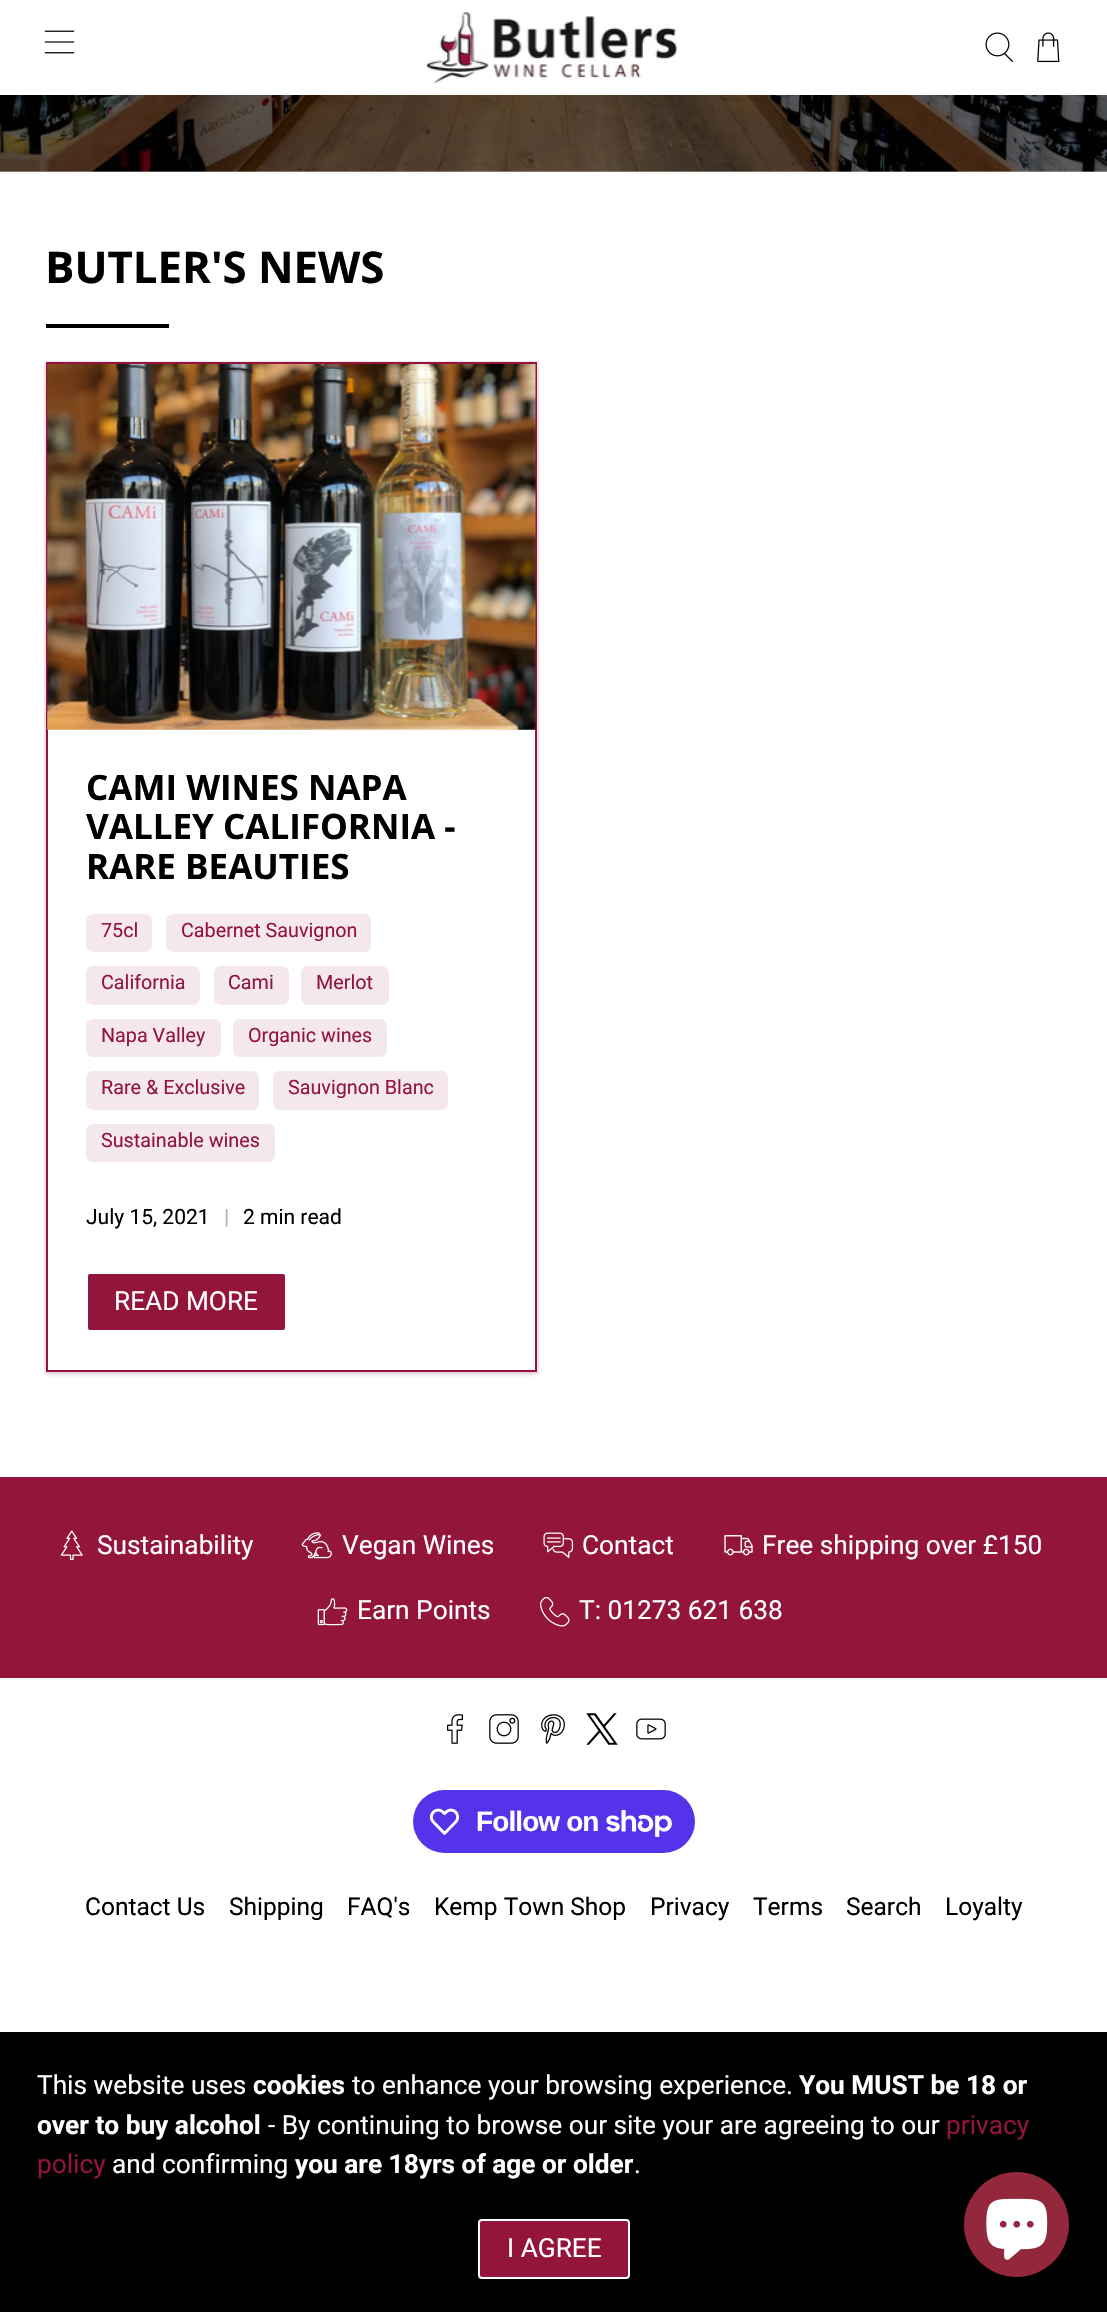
void draw(SkCanvas* canvas) {
    SkPaint paint;
    paint.setAntiAlias(true);
    auto face = [&](const char* family, int weight, float size, bool italic = false) {
        SkFontStyle style(weight, SkFontStyle::kNormal_Width,
            italic ? SkFontStyle::kItalic_Slant : SkFontStyle::kUpright_Slant);
        SkFont result(fontMgr->matchFamilyStyle(family, style), size);
        result.setSubpixel(true);
        return result;
    };
    auto write = [&](const char* s, float x, float y, const SkFont& font, SkColor color) {
        SkPaint ink(SkColor4f::FromColor(color));
        ink.setAntiAlias(true);
        canvas->drawString(s, x, y, font, ink);
    };
    auto writeSpaced = [&](const char* s, float x, float y, const SkFont& font, const SkPaint& ink, float letter, float word) {
        std::vector<SkGlyphID> glyphs(font.countText(s, strlen(s), SkTextEncoding::kUTF8));
        std::vector<float> xs(glyphs.size());
        font.textToGlyphs(s, strlen(s), SkTextEncoding::kUTF8, glyphs);
        font.getXPos(glyphs, xs, x);
        float extra = 0;
        for (size_t i = 0; i < glyphs.size(); i++) {
            xs[i] += extra;
            extra += letter + word * (glyphs[i] == font.unicharToGlyph(' '));
        }
        canvas->drawTextBlob(SkTextBlob::MakeFromPosHGlyphs(glyphs, xs, y, font), 0, 0, ink);
    };
    auto block = [&](float x, float y, float w, float h, SkColor color) {
        SkPaint ink(SkColor4f::FromColor(color));
        ink.setAntiAlias(true);
        canvas->drawRect(SkRect::MakeXYWH(x, y, w, h), ink);
    };
    auto card = [&](float x, float y, float w, float h, float radius, SkColor color) {
        SkPaint ink(SkColor4f::FromColor(color));
        ink.setAntiAlias(true);
        canvas->drawRoundRect(SkRect::MakeXYWH(x, y, w, h), radius, radius, ink);
    };
    auto paste = [&](const char* path, float x, float y, float w, float h) {
        auto image = SkImages::DeferredFromEncodedData(SkData::MakeFromFileName(path));
        canvas->drawImageRect(image, SkRect::MakeXYWH(x, y, w, h), SkSamplingOptions());
    };
    canvas->clear(SK_ColorWHITE);
    paste("pic1.png", 44, 30, 31, 24);
    paste("pic2.png", 427, 11, 251, 73);
    paste("pic3.png", 985, 32, 28, 30);
    paste("pic4.png", 1037, 32, 23, 31);
    paste("pic5.png", 0, 95, 1107, 77);
    auto kFont1 = face("Open Sans", 700, 43.75f);
    write("BUTLER'S NEWS", 45, 283, kFont1, SK_ColorBLACK);
    block(46, 324, 123, 4, SK_ColorBLACK);
    paint.setStyle(SkPaint::kStroke_Style);
    paint.setStrokeWidth(2);
    paint.setColor(SkColorSetRGB(244, 232, 236));
    canvas->drawRect(SkRect::MakeXYWH(45, 362, 493, 1011), paint);
    paint.setStyle(SkPaint::kFill_Style);
    paint.setColor(SkColorSetARGB(26, 147, 21, 60));
    paint.setMaskFilter(SkMaskFilter::MakeBlur(kNormal_SkBlurStyle, 2.5f));
    canvas->drawRect(SkRect::MakeXYWH(46, 366, 491, 1010), paint);
    paint.setMaskFilter(nullptr);
    paint.setColor(SK_ColorWHITE);
    canvas->drawRect(SkRect::MakeXYWH(47, 363, 489, 1008), paint);
    paint.setStyle(SkPaint::kStroke_Style);
    paint.setColor(SkColorSetRGB(147, 21, 60));
    canvas->drawRect(SkRect::MakeXYWH(47, 363, 489, 1008), paint);
    paste("pic6.png", 47, 364, 489, 366);
    auto kFont2 = face("Open Sans", 700, 35);
    write("CAMI WINES NAPA", 86, 800, kFont2, SK_ColorBLACK);
    write("VALLEY CALIFORNIA -", 86, 839, kFont2, SK_ColorBLACK);
    write("RARE BEAUTIES", 86, 879, kFont2, SK_ColorBLACK);
    card(86, 914, 66, 38, 7, SkColorSetRGB(244, 232, 236));
    auto kFont3 = face("Roboto", 400, 19.75f);
    write("75cl", 101, 937, kFont3, SkColorSetRGB(147, 21, 60));
    card(166, 914, 205, 38, 7, SkColorSetRGB(244, 232, 236));
    write("Cabernet Sauvignon", 181, 937, kFont3, SkColorSetRGB(147, 21, 60));
    card(86, 966, 114, 39, 7, SkColorSetRGB(244, 232, 236));
    write("California", 101, 989, kFont3, SkColorSetRGB(147, 21, 60));
    card(214, 966, 75, 39, 7, SkColorSetRGB(244, 232, 236));
    write("Cami", 228, 989, kFont3, SkColorSetRGB(147, 21, 60));
    card(301, 966, 88, 39, 7, SkColorSetRGB(244, 232, 236));
    write("Merlot", 316, 989, kFont3, SkColorSetRGB(147, 21, 60));
    card(86, 1019, 135, 38, 7, SkColorSetRGB(244, 232, 236));
    write("Napa Valley", 101, 1042, kFont3, SkColorSetRGB(147, 21, 60));
    card(233, 1019, 154, 38, 7, SkColorSetRGB(244, 232, 236));
    write("Organic wines", 248, 1042, kFont3, SkColorSetRGB(147, 21, 60));
    card(86, 1071, 173, 39, 7, SkColorSetRGB(244, 232, 236));
    write("Rare & Exclusive", 101, 1094, kFont3, SkColorSetRGB(147, 21, 60));
    card(273, 1071, 175, 39, 7, SkColorSetRGB(244, 232, 236));
    write("Sauvignon Blanc", 288, 1094, kFont3, SkColorSetRGB(147, 21, 60));
    card(86, 1124, 189, 38, 7, SkColorSetRGB(244, 232, 236));
    write("Sustainable wines", 101, 1147, kFont3, SkColorSetRGB(147, 21, 60));
    auto kFont4 = face("Roboto", 400, 21);
    write("July 15, 2021", 86, 1224, kFont4, SK_ColorBLACK);
    write("|", 224, 1224, kFont4, SkColorSetRGB(179, 179, 179));
    write("2 min read", 243, 1224, kFont4, SK_ColorBLACK);
    paint.setStyle(SkPaint::kFill_Style);
    canvas->drawRoundRect(SkRect::MakeXYWH(87, 1273, 199, 58), 3, 3, paint);
    paint.setStyle(SkPaint::kStroke_Style);
    paint.setColor(SK_ColorWHITE);
    canvas->drawRoundRect(SkRect::MakeXYWH(87, 1273, 199, 58), 3, 3, paint);
    auto kFont5 = face("Roboto", 400, 26.25f);
    write("READ MORE", 114, 1310, kFont5, SK_ColorWHITE);
    block(0, 1477, 1107, 201, SkColorSetRGB(147, 21, 60));
    paste("pic7.png", 60, 1530, 23, 31);
    write("Sustainability", 97, 1554, kFont5, SK_ColorWHITE);
    paste("pic8.png", 301, 1532, 31, 27);
    write("Vegan Wines", 342, 1554, kFont5, SK_ColorWHITE);
    paste("pic9.png", 543, 1532, 31, 26);
    write("Contact", 582, 1554, kFont5, SK_ColorWHITE);
    paste("pic10.png", 724, 1535, 29, 21);
    write("Free shipping over £150", 762, 1554, kFont5, SK_ColorWHITE);
    paste("pic11.png", 317, 1598, 31, 28);
    write("Earn Points", 357, 1619, kFont5, SK_ColorWHITE);
    paste("pic12.png", 540, 1597, 30, 30);
    write("T: 01273 621 638", 579, 1619, kFont5, SK_ColorWHITE);
    paste("pic13.png", 447, 1714, 16, 30);
    paste("pic14.png", 489, 1714, 30, 30);
    paste("pic15.png", 541, 1714, 24, 30);
    paste("pic16.png", 586, 1713, 32, 32);
    paste("pic17.png", 636, 1718, 30, 22);
    card(413, 1790, 282, 63, 31.5f, SkColorSetRGB(84, 51, 235));
    paste("pic18.png", 429, 1808, 31, 27);
    auto kFont6 = face("Liberation Sans", 700, 28);
    paint.setStyle(SkPaint::kFill_Style);
    writeSpaced("Follow on", 476, 1831, kFont6, paint, -0.9f, 0);
    paste("pic19.png", 606, 1810, 66, 27);
    auto kFont7 = face("Roboto", 400, 24.5f);
    write("Contact Us", 85, 1915, kFont7, SK_ColorBLACK);
    write("Shipping", 229, 1915, kFont7, SK_ColorBLACK);
    write("FAQ's", 347, 1915, kFont7, SK_ColorBLACK);
    write("Kemp Town Shop", 434, 1915, kFont7, SK_ColorBLACK);
    write("Privacy", 650, 1915, kFont7, SK_ColorBLACK);
    write("Terms", 753, 1915, kFont7, SK_ColorBLACK);
    write("Search", 846, 1915, kFont7, SK_ColorBLACK);
    write("Loyalty", 945, 1915, kFont7, SK_ColorBLACK);
    block(0, 2032, 1107, 280, SK_ColorBLACK);
    write("This website uses", 37, 2094, kFont5, SK_ColorWHITE);
    auto kFont8 = face("Roboto", 700, 26.25f);
    write("cookies", 253, 2094, kFont8, SK_ColorWHITE);
    write("to enhance your browsing experience.", 352, 2094, kFont5, SK_ColorWHITE);
    write("You MUST be 18 or", 799, 2094, kFont8, SK_ColorWHITE);
    write("over to buy alcohol", 37, 2134, kFont8, SK_ColorWHITE);
    write("- By continuing to browse our site your are agreeing to our", 268, 2134, kFont5, SK_ColorWHITE);
    write("privacy", 946, 2134, kFont5, SkColorSetRGB(147, 21, 60));
    write("policy", 37, 2173, kFont5, SkColorSetRGB(147, 21, 60));
    write("and confirming", 112, 2173, kFont5, SK_ColorWHITE);
    write("you are 18yrs of age or older", 295, 2173, kFont8, SK_ColorWHITE);
    write(".", 634, 2173, kFont5, SK_ColorWHITE);
    paint.setColor(SkColorSetRGB(147, 21, 60));
    canvas->drawRoundRect(SkRect::MakeXYWH(479, 2220, 150, 58), 3, 3, paint);
    paint.setStyle(SkPaint::kStroke_Style);
    paint.setColor(SK_ColorWHITE);
    canvas->drawRoundRect(SkRect::MakeXYWH(479, 2220, 150, 58), 3, 3, paint);
    write("I AGREE", 507, 2257, kFont5, SK_ColorWHITE);
    paint.setStyle(SkPaint::kFill_Style);
    paint.setColor(SkColorSetRGB(147, 39, 60));
    canvas->drawCircle(1016.5f, 2224.5f, 52.5f, paint);
    paste("pic20.png", 986, 2198, 62, 62);
}
